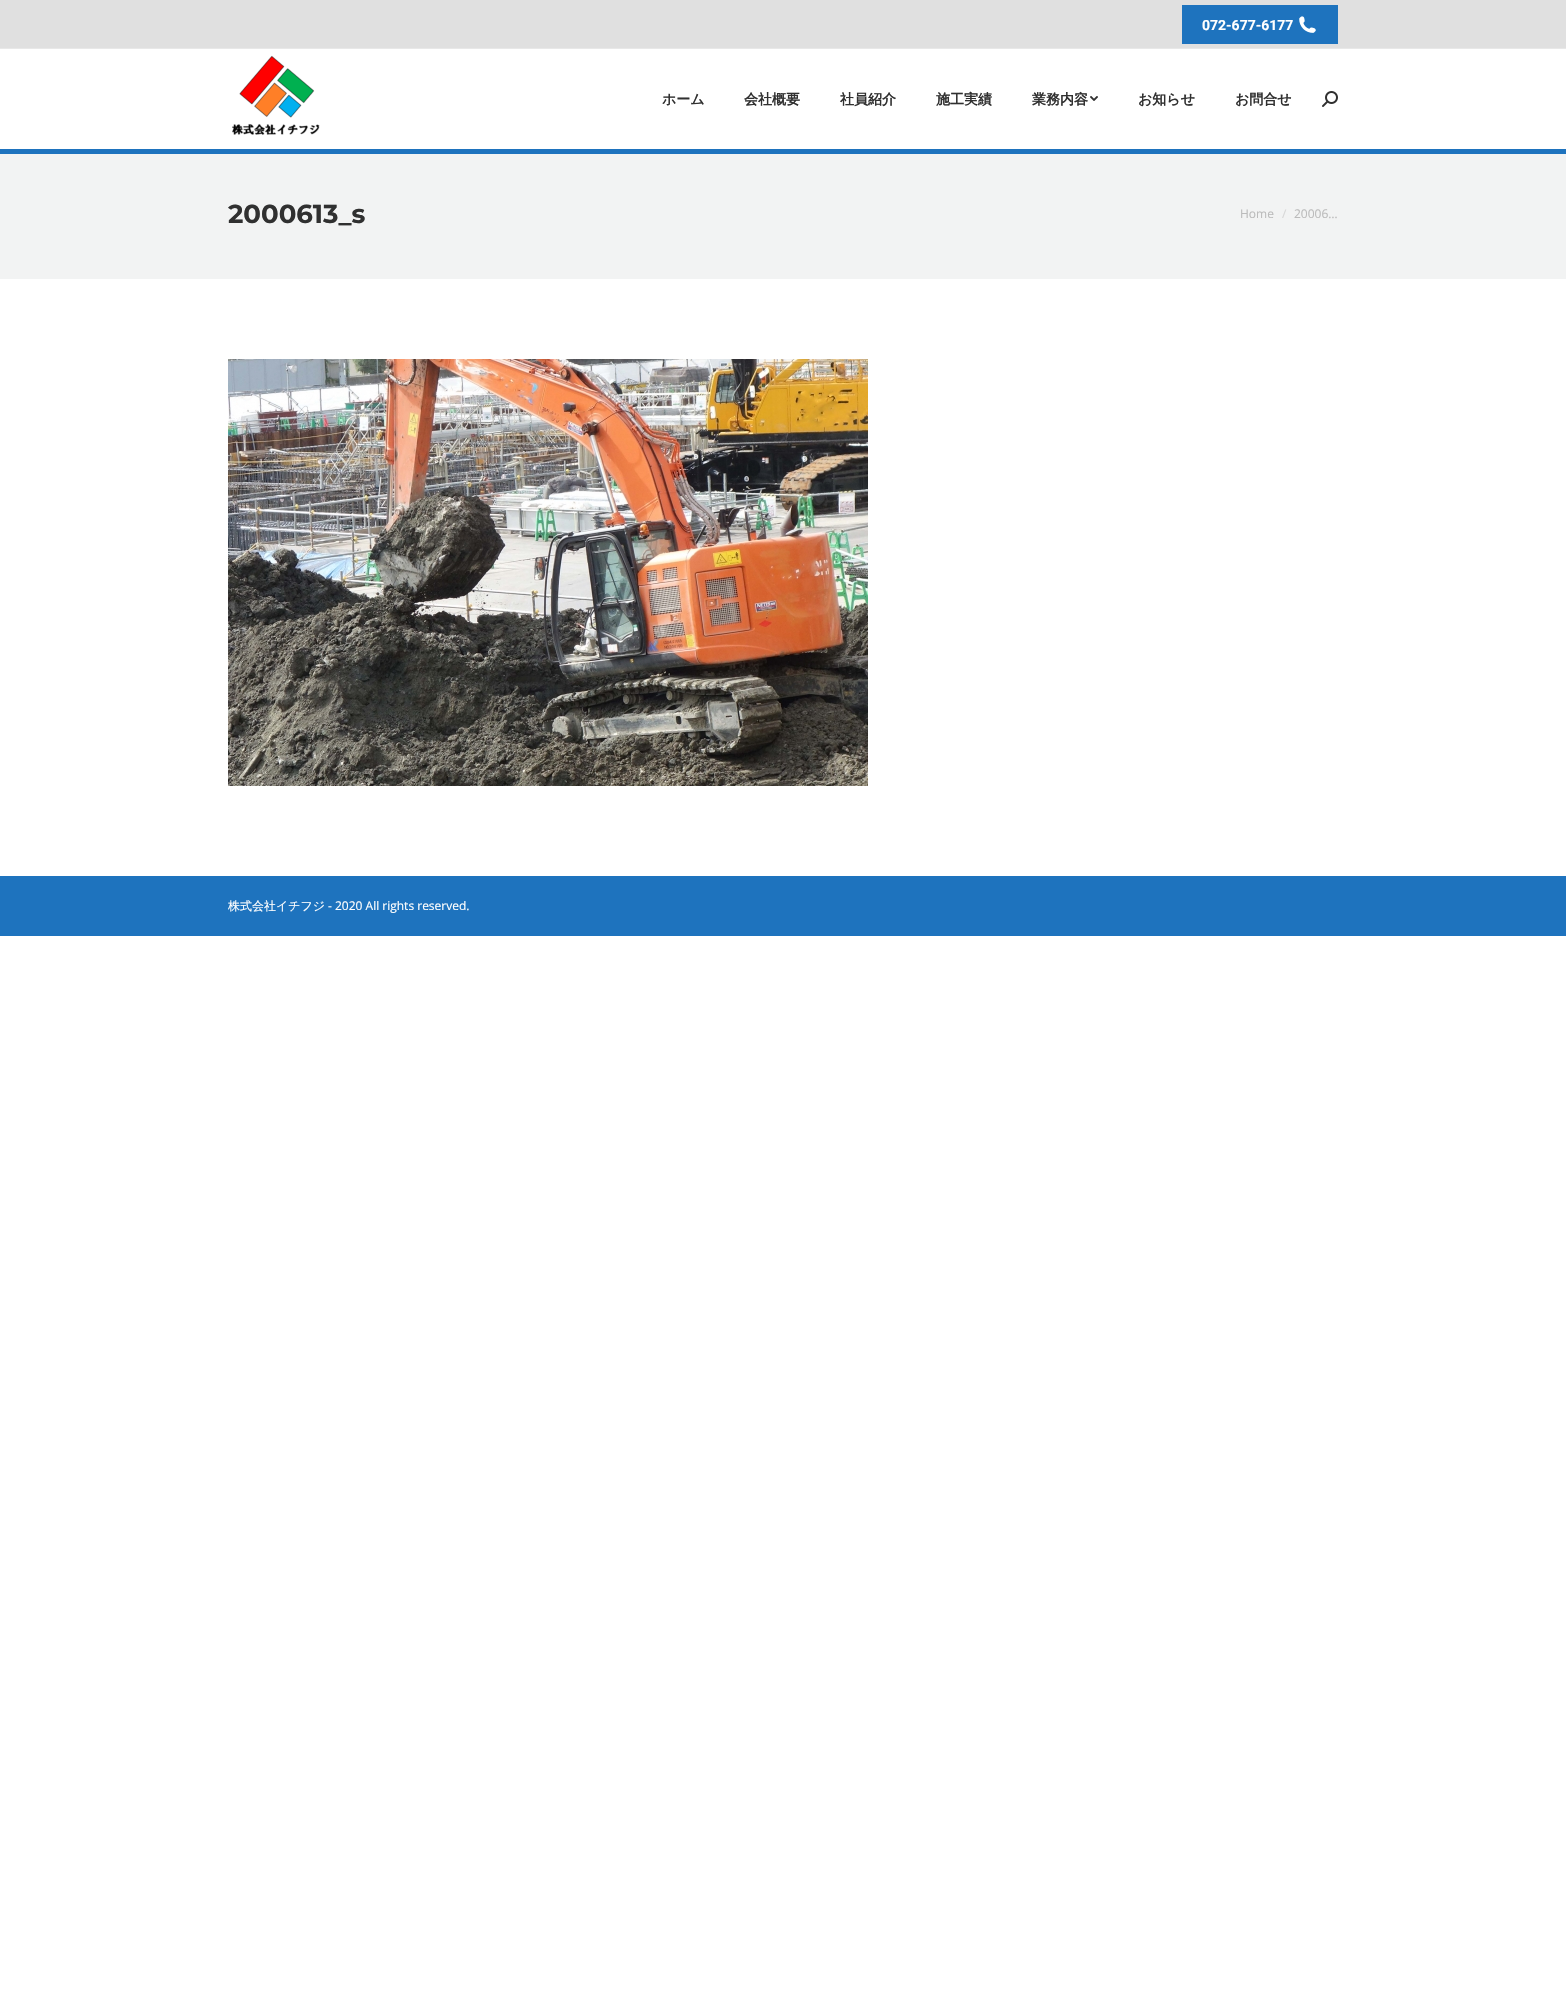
void draw(SkCanvas* canvas) {
    SkPaint paint;
    paint.setAntiAlias(true);
    auto face = [&](const char* family, int weight, float size, bool italic = false) {
        SkFontStyle style(weight, SkFontStyle::kNormal_Width,
            italic ? SkFontStyle::kItalic_Slant : SkFontStyle::kUpright_Slant);
        SkFont result(fontMgr->matchFamilyStyle(family, style), size);
        result.setSubpixel(true);
        return result;
    };
    auto write = [&](const char* s, float x, float y, const SkFont& font, SkColor color) {
        SkPaint ink(SkColor4f::FromColor(color));
        ink.setAntiAlias(true);
        canvas->drawString(s, x, y, font, ink);
    };
    auto block = [&](float x, float y, float w, float h, SkColor color) {
        SkPaint ink(SkColor4f::FromColor(color));
        ink.setAntiAlias(true);
        canvas->drawRect(SkRect::MakeXYWH(x, y, w, h), ink);
    };
    auto paste = [&](const char* path, float x, float y, float w, float h) {
        auto image = SkImages::DeferredFromEncodedData(SkData::MakeFromFileName(path));
        canvas->drawImageRect(image, SkRect::MakeXYWH(x, y, w, h), SkSamplingOptions());
    };
    canvas->clear(SK_ColorWHITE);
    block(0, 149, 1566, 5, SkColorSetRGB(30, 115, 190));
    block(0, 0, 1566, 48, SkColorSetRGB(224, 224, 224));
    block(1182, 5, 156, 39, SkColorSetRGB(30, 115, 190));
    auto kFont1 = face("Roboto", 700, 14);
    write("072-677-6177", 1202, 30, kFont1, SK_ColorWHITE);
    paste("pic1.png", 1299, 16, 17, 17);
    block(0, 48, 1566, 1, SkColorSetRGB(232, 232, 232));
    paste("pic2.png", 232, 55, 88, 80);
    auto kFont2 = face("WenQuanYi Zen Hei", 700, 14);
    write("ホーム", 662, 104, kFont2, SkColorSetRGB(48, 48, 48));
    write("会社概要", 744, 104, kFont2, SkColorSetRGB(48, 48, 48));
    write("社員紹介", 840, 104, kFont2, SkColorSetRGB(48, 48, 48));
    write("施工実績", 936, 104, kFont2, SkColorSetRGB(48, 48, 48));
    write("業務内容", 1032, 104, kFont2, SkColorSetRGB(48, 48, 48));
    paste("pic3.png", 1090, 96, 8, 5);
    write("お知らせ", 1138, 104, kFont2, SkColorSetRGB(48, 48, 48));
    write("お問合せ", 1235, 104, kFont2, SkColorSetRGB(48, 48, 48));
    paste("pic4.png", 1322, 91, 16, 16);
    block(0, 154, 1566, 125, SkColorSetRGB(242, 243, 243));
    auto kFont3 = face("Montserrat", 700, 26);
    write("2000613_s", 228, 223, kFont3, SkColorSetRGB(48, 48, 48));
    auto kFont4 = face("Open Sans", 400, 12);
    write("Home", 1240, 218, kFont4, SkColorSetRGB(187, 187, 187));
    write("/", 1282, 218, kFont4, SkColorSetRGB(215, 215, 215));
    write("20006…", 1294, 218, kFont4, SkColorSetRGB(187, 187, 187));
    paste("pic5.png", 228, 359, 640, 427);
    block(0, 876, 1566, 60, SkColorSetRGB(30, 115, 190));
    auto kFont5 = face("WenQuanYi Zen Hei", 500, 12);
    write("株式会社イチフジ", 228, 910, kFont5, SK_ColorWHITE);
    write("- 2020 All rights reserved.", 328, 910, kFont4, SK_ColorWHITE);
}
